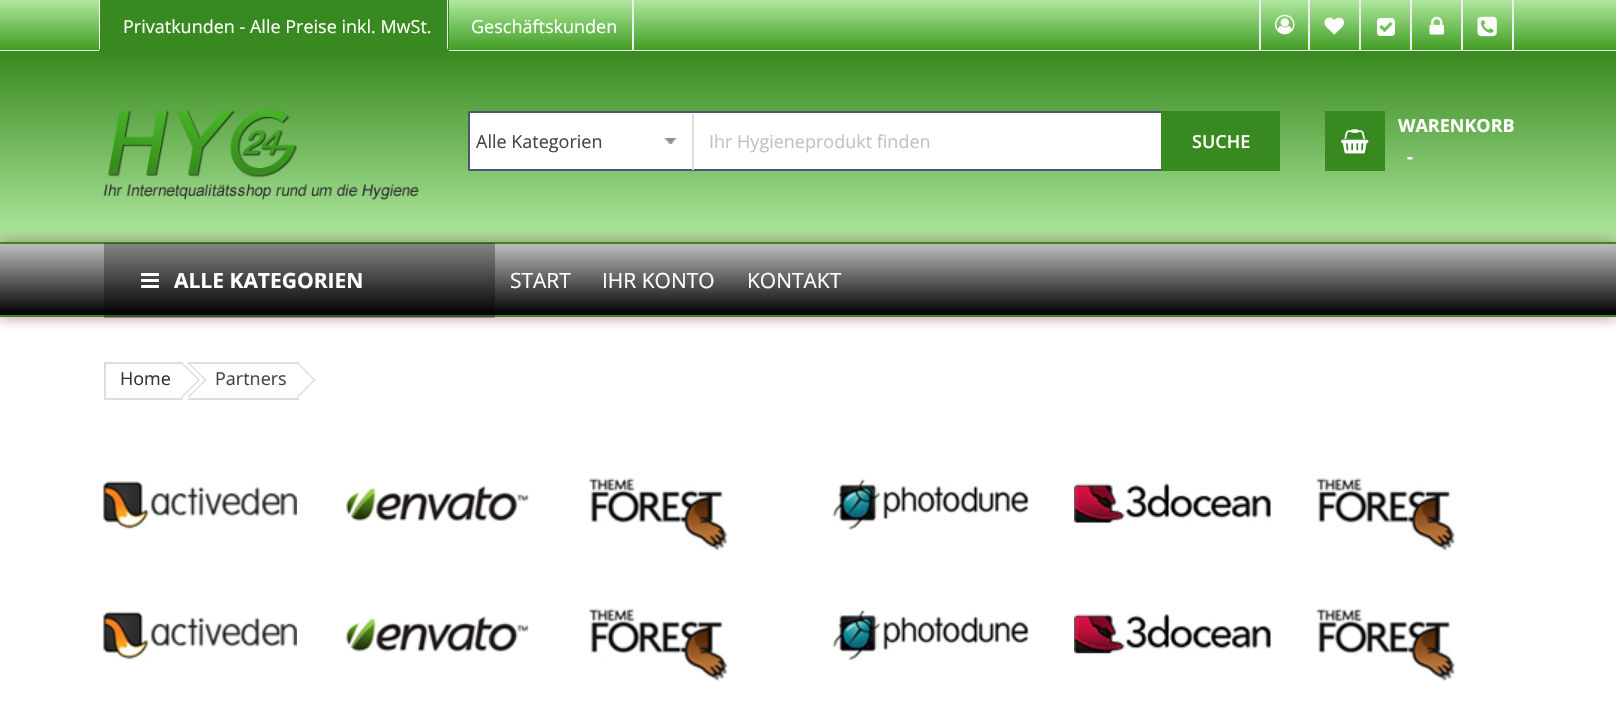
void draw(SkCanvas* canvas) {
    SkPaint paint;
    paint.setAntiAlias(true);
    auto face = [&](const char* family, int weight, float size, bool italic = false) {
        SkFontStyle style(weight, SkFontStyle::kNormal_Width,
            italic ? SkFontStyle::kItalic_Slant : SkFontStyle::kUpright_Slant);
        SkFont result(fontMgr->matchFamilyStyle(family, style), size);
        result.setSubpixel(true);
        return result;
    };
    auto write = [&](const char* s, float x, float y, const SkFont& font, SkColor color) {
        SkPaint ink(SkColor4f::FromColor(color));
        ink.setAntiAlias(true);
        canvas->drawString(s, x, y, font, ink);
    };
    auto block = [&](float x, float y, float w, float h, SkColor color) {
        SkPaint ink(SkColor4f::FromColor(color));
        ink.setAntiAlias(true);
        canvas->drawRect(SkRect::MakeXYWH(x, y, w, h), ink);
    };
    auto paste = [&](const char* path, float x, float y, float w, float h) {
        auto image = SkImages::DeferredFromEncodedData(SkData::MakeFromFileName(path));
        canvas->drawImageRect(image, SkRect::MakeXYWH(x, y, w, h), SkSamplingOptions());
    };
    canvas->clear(SK_ColorWHITE);
    {
        const SkColor colors[] = {SkColorSetRGB(175, 233, 158), SkColorSetRGB(65, 157, 36)};
        const float stops[] = {0, 1};
        const SkPoint ends[] = {{809, 0}, {809, 50}};
        paint.setShader(SkGradientShader::MakeLinear(ends, colors, stops, 2, SkTileMode::kClamp));
        paint.setAlpha(255);
    }
    canvas->drawRect(SkRect::MakeXYWH(0, 0, 1616, 50), paint);
    block(0, 50, 1616, 1, SkColorSetRGB(238, 238, 238));
    block(99, 0, 350, 51, SkColorSetRGB(56, 137, 31));
    paint.setShader(nullptr);
    paint.setColor(SkColorSetRGB(238, 238, 238));
    canvas->drawPath(SkPathBuilder().moveTo(448, 0).lineTo(448, 51).lineTo(447, 48).lineTo(447, 0).close().detach(), paint);
    paint.setColor(SkColorSetRGB(56, 137, 31));
    canvas->drawPath(SkPathBuilder().moveTo(448, 51).lineTo(99, 51).lineTo(100, 48).lineTo(447, 48).close().detach(), paint);
    paint.setColor(SK_ColorWHITE);
    canvas->drawPath(SkPathBuilder().moveTo(99, 51).lineTo(99, 0).lineTo(100, 0).lineTo(100, 48).close().detach(), paint);
    auto kFont1 = face("Open Sans", 400, 18);
    write("Privatkunden - Alle Preise inkl. MwSt.", 123, 33, kFont1, SK_ColorWHITE);
    block(632, 0, 2, 51, SkColorSetRGB(238, 238, 238));
    write("Geschäftskunden", 471, 33, kFont1, SK_ColorWHITE);
    block(1308, 0, 2, 51, SkColorSetRGB(238, 238, 238));
    block(1259, 0, 2, 51, SkColorSetRGB(238, 238, 238));
    paste("pic1.png", 1275, 14, 20, 21);
    block(1359, 0, 2, 51, SkColorSetRGB(238, 238, 238));
    paste("pic2.png", 1324, 17, 20, 18);
    block(1410, 0, 2, 51, SkColorSetRGB(238, 238, 238));
    paste("pic3.png", 1377, 18, 18, 18);
    block(1461, 0, 2, 51, SkColorSetRGB(238, 238, 238));
    paste("pic4.png", 1429, 16, 15, 19);
    block(1512, 0, 2, 51, SkColorSetRGB(238, 238, 238));
    paste("pic5.png", 1477, 16, 20, 21);
    {
        const SkColor colors[] = {SkColorSetRGB(56, 137, 31), SkColorSetRGB(175, 233, 158)};
        const float stops[] = {0, 1};
        const SkPoint ends[] = {{809, 51}, {809, 242}};
        paint.setShader(SkGradientShader::MakeLinear(ends, colors, stops, 2, SkTileMode::kClamp));
        paint.setAlpha(255);
    }
    canvas->drawRect(SkRect::MakeXYWH(0, 51, 1616, 191), paint);
    paste("pic6.png", 103, 109, 316, 91);
    paint.setShader(nullptr);
    paint.setColor(SK_ColorWHITE);
    canvas->drawRoundRect(SkRect::MakeXYWH(469, 112, 693, 58), 0.5f, 0.5f, paint);
    paint.setStyle(SkPaint::kStroke_Style);
    paint.setStrokeWidth(2);
    paint.setColor(SkColorSetRGB(74, 86, 120));
    canvas->drawRoundRect(SkRect::MakeXYWH(469, 112, 693, 58), 0.5f, 0.5f, paint);
    paste("pic7.png", 664, 138, 13, 6);
    block(692, 114, 2, 56, SkColorSetRGB(221, 221, 221));
    write("Alle Kategorien", 476, 148, kFont1, SkColorSetRGB(68, 68, 68));
    write("Ihr Hygieneprodukt finden", 709, 148, kFont1, SkColorSetRGB(194, 194, 194));
    block(1161, 111, 119, 60, SkColorSetRGB(56, 137, 31));
    auto kFont2 = face("Open Sans", 600, 18);
    write("SUCHE", 1192, 148, kFont2, SK_ColorWHITE);
    block(1325, 111, 60, 60, SkColorSetRGB(56, 137, 31));
    paste("pic8.png", 1341, 129, 28, 25);
    auto kFont3 = face("Open Sans", 700, 18);
    write("WARENKORB", 1398, 132, kFont3, SK_ColorWHITE);
    write("-", 1407, 163, kFont3, SK_ColorWHITE);
    paint.setStyle(SkPaint::kFill_Style);
    paint.setColor(SkColorSetARGB(153, 136, 46, 75));
    paint.setMaskFilter(SkMaskFilter::MakeBlur(kNormal_SkBlurStyle, 7));
    canvas->drawRect(SkRect::MakeXYWH(-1, 242, 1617, 75), paint);
    paint.setMaskFilter(nullptr);
    {
        const SkColor colors[] = {SkColorSetRGB(192, 192, 192), SK_ColorBLACK};
        const float stops[] = {0, 1};
        const SkPoint ends[] = {{809, 243}, {809, 315}};
        paint.setShader(SkGradientShader::MakeLinear(ends, colors, stops, 2, SkTileMode::kClamp));
        paint.setAlpha(255);
    }
    canvas->drawRect(SkRect::MakeXYWH(0, 244, 1616, 71), paint);
    block(0, 242, 1616, 2, SkColorSetRGB(56, 137, 31));
    block(0, 315, 1616, 2, SkColorSetRGB(56, 137, 31));
    block(104, 243, 391, 75, SkColorSetARGB(77, 0, 0, 0));
    paste("pic9.png", 141, 273, 18, 15);
    auto kFont4 = face("Open Sans", 700, 21);
    write("ALLE KATEGORIEN", 174, 288, kFont4, SK_ColorWHITE);
    auto kFont5 = face("Open Sans", 400, 21);
    write("START", 510, 288, kFont5, SK_ColorWHITE);
    write("IHR KONTO", 602, 288, kFont5, SK_ColorWHITE);
    write("KONTAKT", 747, 288, kFont5, SK_ColorWHITE);
    block(104, 362, 79, 2, SkColorSetRGB(221, 221, 221));
    block(104, 398, 79, 2, SkColorSetRGB(221, 221, 221));
    block(104, 362, 2, 37, SkColorSetRGB(221, 221, 221));
    write("Home", 120, 385, kFont1, SkColorSetRGB(51, 51, 51));
    paint.setShader(nullptr);
    paint.setColor(SkColorSetRGB(221, 221, 221));
    canvas->drawPath(SkPathBuilder().moveTo(182, 362).lineTo(200, 380).lineTo(199, 381).lineTo(181, 363).close().detach(), paint);
    canvas->drawPath(SkPathBuilder().moveTo(199, 379).lineTo(200, 380).lineTo(182, 398).lineTo(181, 397).close().detach(), paint);
    block(188, 362, 111, 2, SkColorSetRGB(221, 221, 221));
    block(188, 398, 111, 2, SkColorSetRGB(221, 221, 221));
    canvas->drawPath(SkPathBuilder().moveTo(188.5f, 362).lineTo(206.5f, 380).lineTo(205.5f, 381).lineTo(187.5f, 363).close().detach(), paint);
    canvas->drawPath(SkPathBuilder().moveTo(205.5f, 379).lineTo(206.5f, 380).lineTo(188.5f, 398).lineTo(187.5f, 397).close().detach(), paint);
    write("Partners", 215, 385, kFont1, SkColorSetRGB(68, 68, 68));
    canvas->drawPath(SkPathBuilder().moveTo(297.5f, 362).lineTo(315.5f, 380).lineTo(314.5f, 381).lineTo(296.5f, 363).close().detach(), paint);
    canvas->drawPath(SkPathBuilder().moveTo(314.5f, 379).lineTo(315.5f, 380).lineTo(297.5f, 398).lineTo(296.5f, 397).close().detach(), paint);
    paste("pic10.png", 103, 481, 194, 49);
    paste("pic11.png", 346, 485, 183, 37);
    paste("pic12.png", 588, 478, 140, 73);
    paste("pic13.png", 832, 479, 197, 52);
    paste("pic14.png", 1074, 483, 197, 40);
    paste("pic15.png", 1315, 478, 140, 73);
    paste("pic16.png", 103, 611, 194, 49);
    paste("pic17.png", 346, 616, 183, 37);
    paste("pic18.png", 588, 608, 140, 74);
    paste("pic19.png", 832, 609, 197, 52);
    paste("pic20.png", 1074, 614, 197, 40);
    paste("pic21.png", 1315, 608, 140, 74);
}
